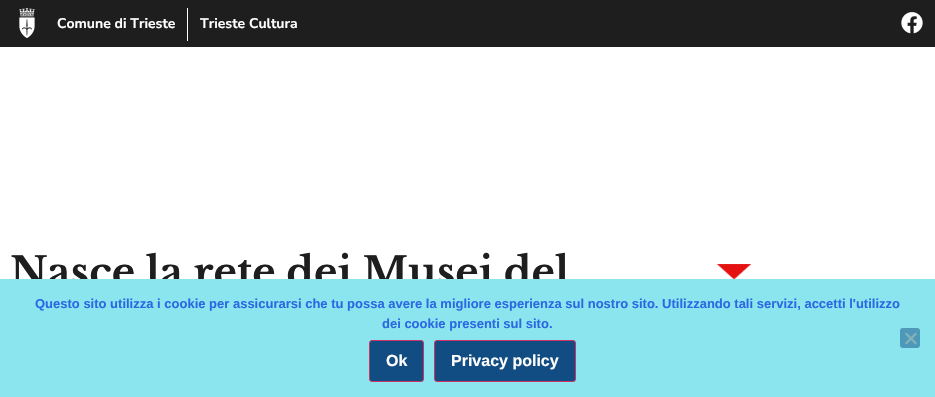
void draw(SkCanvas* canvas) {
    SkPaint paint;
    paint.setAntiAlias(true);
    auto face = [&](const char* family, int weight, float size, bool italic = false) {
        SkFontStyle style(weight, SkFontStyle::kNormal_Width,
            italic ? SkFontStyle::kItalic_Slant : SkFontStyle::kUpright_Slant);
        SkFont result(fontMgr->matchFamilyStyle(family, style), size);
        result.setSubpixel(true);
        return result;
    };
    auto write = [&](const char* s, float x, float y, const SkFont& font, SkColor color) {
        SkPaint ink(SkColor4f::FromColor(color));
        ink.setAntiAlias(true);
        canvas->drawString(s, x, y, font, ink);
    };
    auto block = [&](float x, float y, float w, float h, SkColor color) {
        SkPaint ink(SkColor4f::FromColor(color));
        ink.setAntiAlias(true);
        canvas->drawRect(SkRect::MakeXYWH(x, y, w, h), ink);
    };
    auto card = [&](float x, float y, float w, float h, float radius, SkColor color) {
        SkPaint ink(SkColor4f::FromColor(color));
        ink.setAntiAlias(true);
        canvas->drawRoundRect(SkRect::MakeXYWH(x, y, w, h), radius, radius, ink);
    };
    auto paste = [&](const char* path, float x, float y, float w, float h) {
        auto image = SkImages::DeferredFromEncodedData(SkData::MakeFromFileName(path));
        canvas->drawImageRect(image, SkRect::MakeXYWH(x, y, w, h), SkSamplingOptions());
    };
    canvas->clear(SK_ColorWHITE);
    block(0, 0, 935, 47, SkColorSetRGB(30, 30, 30));
    block(187, 8, 1, 33, SK_ColorWHITE);
    paste("pic1.png", 19, 8, 16, 30);
    auto kFont1 = face("Nunito Sans", 700, 14);
    write("Comune di Trieste", 57, 28, kFont1, SK_ColorWHITE);
    write("Trieste Cultura", 200, 28, kFont1, SK_ColorWHITE);
    paste("pic2.png", 901, 12, 22, 22);
    auto kFont2 = face("Libre Baskerville", 700, 40);
    write("Nasce la rete dei Musei del", 10, 286, kFont2, SkColorSetRGB(30, 30, 30));
    paste("pic3.png", 717, 264, 35, 15);
    block(0, 279, 935, 118, SkColorSetRGB(139, 229, 239));
    auto kFont3 = face("Liberation Sans", 700, 13);
    write("Questo sito utilizza i cookie per assicurarsi che tu possa avere la migliore esperienza sul nostro sito. Utilizzando tali servizi, accetti l'utilizzo", 35, 308, kFont3, SkColorSetRGB(43, 104, 226));
    write("dei cookie presenti sul sito.", 382, 328, kFont3, SkColorSetRGB(43, 104, 226));
    card(900, 328, 20, 20, 3, SkColorSetRGB(78, 153, 185));
    paint.setColor(SkColorSetRGB(134, 179, 184));
    canvas->drawPath(SkPathBuilder().moveTo(915.5f, 332.5f).lineTo(917, 334).lineTo(906.5f, 344.5f).lineTo(905, 343).close().detach(), paint);
    canvas->drawPath(SkPathBuilder().moveTo(905, 334).lineTo(906.5f, 332.5f).lineTo(917, 343).lineTo(915.5f, 344.5f).close().detach(), paint);
    paint.setColor(SkColorSetRGB(17, 77, 130));
    canvas->drawRoundRect(SkRect::MakeXYWH(369.5f, 340.5f, 54, 41), 2.5f, 2.5f, paint);
    paint.setStyle(SkPaint::kStroke_Style);
    paint.setStrokeWidth(1);
    paint.setColor(SkColorSetRGB(204, 51, 102));
    canvas->drawRoundRect(SkRect::MakeXYWH(369.5f, 340.5f, 54, 41), 2.5f, 2.5f, paint);
    auto kFont4 = face("Liberation Sans", 700, 16);
    write("Ok", 386, 366, kFont4, SK_ColorWHITE);
    paint.setStyle(SkPaint::kFill_Style);
    paint.setColor(SkColorSetRGB(17, 77, 130));
    canvas->drawRoundRect(SkRect::MakeXYWH(434.5f, 340.5f, 141, 41), 2.5f, 2.5f, paint);
    paint.setStyle(SkPaint::kStroke_Style);
    paint.setColor(SkColorSetRGB(204, 51, 102));
    canvas->drawRoundRect(SkRect::MakeXYWH(434.5f, 340.5f, 141, 41), 2.5f, 2.5f, paint);
    write("Privacy policy", 451, 366, kFont4, SK_ColorWHITE);
}
